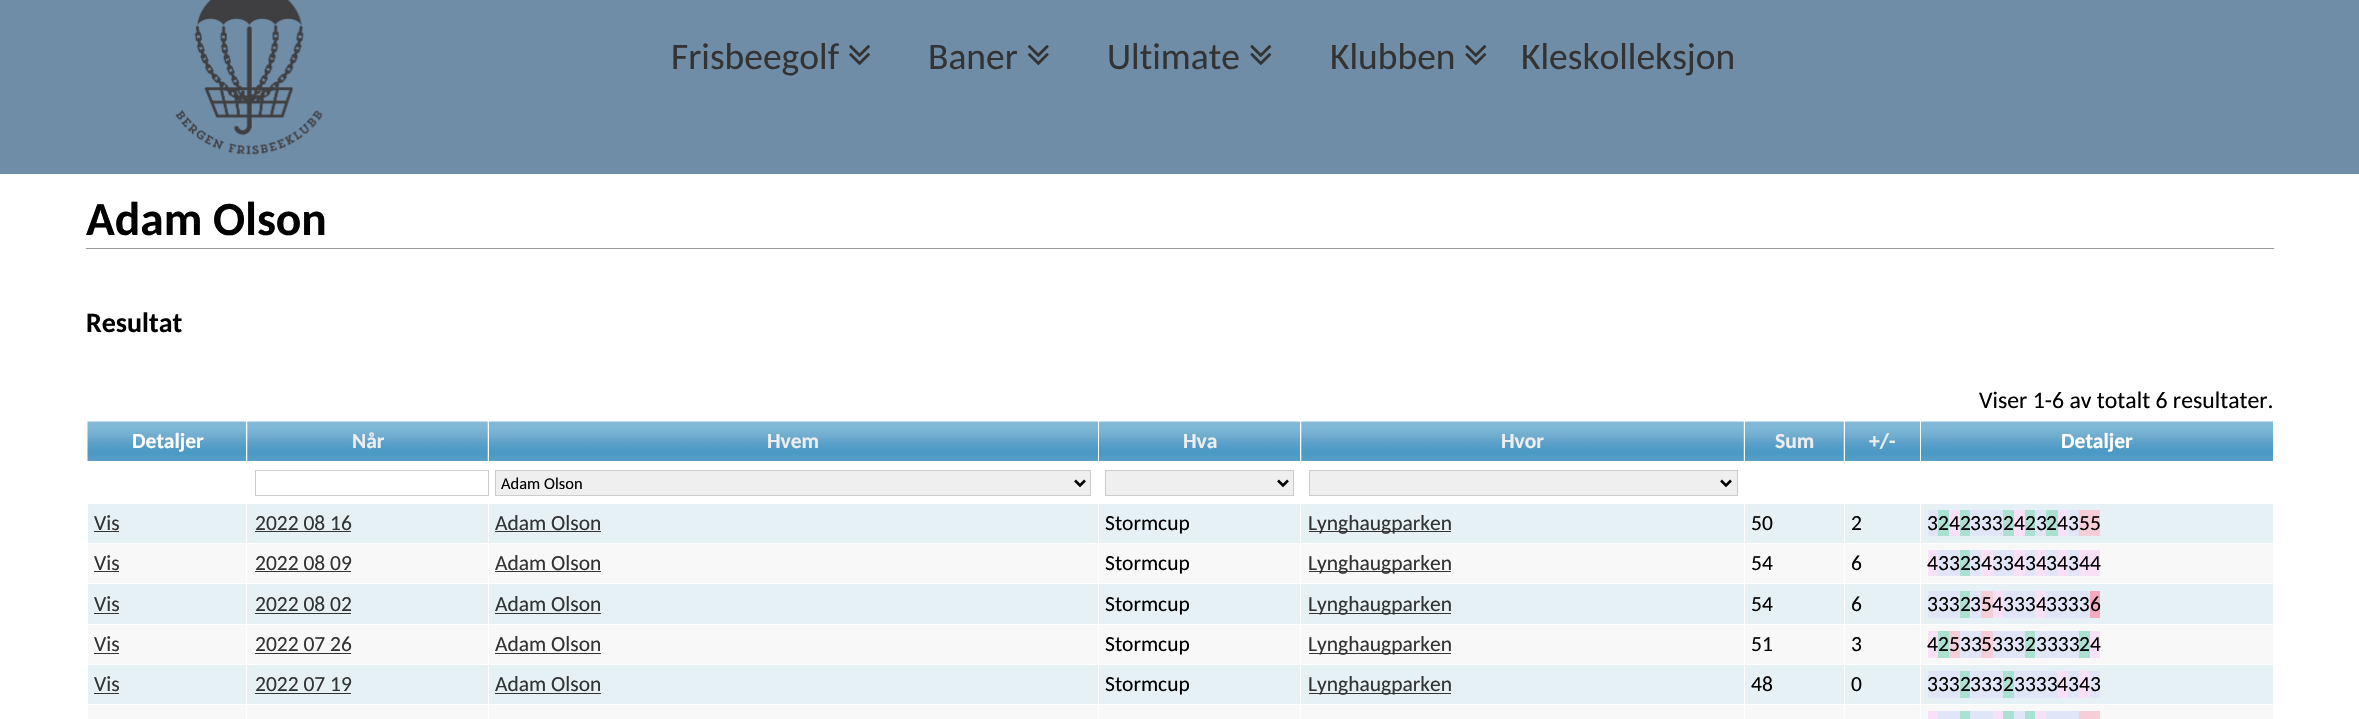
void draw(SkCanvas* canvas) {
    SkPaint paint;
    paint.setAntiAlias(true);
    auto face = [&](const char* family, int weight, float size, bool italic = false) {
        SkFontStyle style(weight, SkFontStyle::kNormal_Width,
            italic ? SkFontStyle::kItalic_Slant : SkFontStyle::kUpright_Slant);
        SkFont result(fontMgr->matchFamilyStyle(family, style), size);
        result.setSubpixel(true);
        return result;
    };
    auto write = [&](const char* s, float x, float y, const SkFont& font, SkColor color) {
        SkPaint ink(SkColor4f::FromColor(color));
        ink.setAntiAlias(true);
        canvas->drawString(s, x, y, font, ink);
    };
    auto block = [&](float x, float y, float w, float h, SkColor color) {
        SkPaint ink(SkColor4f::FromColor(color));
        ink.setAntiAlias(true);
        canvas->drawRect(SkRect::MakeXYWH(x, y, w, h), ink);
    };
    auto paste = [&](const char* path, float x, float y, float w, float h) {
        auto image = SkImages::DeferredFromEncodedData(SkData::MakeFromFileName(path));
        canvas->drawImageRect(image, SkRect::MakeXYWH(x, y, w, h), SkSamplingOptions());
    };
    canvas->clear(SK_ColorWHITE);
    paint.setColor(SkColorSetARGB(252, 255, 255, 255));
    paint.setMaskFilter(SkMaskFilter::MakeBlur(kNormal_SkBlurStyle, 19));
    canvas->drawRect(SkRect::MakeXYWH(0, -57, 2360, 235), paint);
    paint.setMaskFilter(nullptr);
    block(0, 0, 2359, 174, SkColorSetRGB(112, 141, 167));
    paste("pic1.png", 175, 0, 148, 155);
    auto kFont1 = face("Carlito", 400, 37.5f);
    write("Frisbeegolf", 671, 69, kFont1, SkColorSetRGB(51, 51, 51));
    paste("pic2.png", 849, 45, 21, 21);
    write("Baner", 928, 69, kFont1, SkColorSetRGB(51, 51, 51));
    paste("pic3.png", 1027, 45, 22, 21);
    write("Ultimate", 1107, 69, kFont1, SkColorSetRGB(51, 51, 51));
    paste("pic4.png", 1250, 45, 22, 21);
    write("Klubben", 1330, 69, kFont1, SkColorSetRGB(51, 51, 51));
    paste("pic4.png", 1465, 45, 22, 21);
    write("Kleskolleksjon", 1521, 69, kFont1, SkColorSetRGB(51, 51, 51));
    block(86, 248, 2188, 1, SkColorSetRGB(153, 153, 153));
    auto kFont2 = face("Carlito", 700, 47.5f);
    write("Adam Olson", 86, 235, kFont2, SK_ColorBLACK);
    auto kFont3 = face("Carlito", 700, 28);
    write("Resultat", 86, 332, kFont3, SK_ColorBLACK);
    auto kFont4 = face("Carlito", 400, 23.75f);
    write("Viser 1-6 av totalt 6 resultater.", 1979, 408, kFont4, SK_ColorBLACK);
    paste("pic5.png", 87, 421, 161, 40);
    auto kFont5 = face("Carlito", 700, 21.5f);
    write("Detaljer", 132, 448, kFont5, SK_ColorWHITE);
    paste("pic6.png", 247, 421, 241, 40);
    block(246, 420, 1, 43, SK_ColorWHITE);
    write("Når", 352, 448, kFont5, SkColorSetRGB(238, 238, 238));
    paste("pic7.png", 487, 421, 611, 40);
    block(488, 420, 1, 43, SK_ColorWHITE);
    write("Hvem", 767, 448, kFont5, SkColorSetRGB(238, 238, 238));
    paste("pic8.png", 1099, 421, 201, 40);
    write("Hva", 1183, 448, kFont5, SkColorSetRGB(238, 238, 238));
    paste("pic9.png", 1301, 421, 443, 40);
    write("Hvor", 1501, 448, kFont5, SkColorSetRGB(238, 238, 238));
    paste("pic10.png", 1743, 421, 101, 40);
    block(1744, 420, 1, 43, SK_ColorWHITE);
    write("Sum", 1775, 448, kFont5, SkColorSetRGB(238, 238, 238));
    paste("pic11.png", 1843, 421, 77, 40);
    block(1844, 420, 1, 43, SK_ColorWHITE);
    write("+/-", 1869, 448, kFont5, SkColorSetRGB(238, 238, 238));
    paste("pic12.png", 1921, 421, 352, 40);
    write("Detaljer", 2061, 448, kFont5, SK_ColorWHITE);
    paint.setStyle(SkPaint::kStroke_Style);
    paint.setStrokeWidth(1);
    paint.setColor(SkColorSetRGB(204, 204, 204));
    canvas->drawRect(SkRect::MakeXYWH(255.5f, 470.5f, 233, 25), paint);
    paint.setStyle(SkPaint::kFill_Style);
    paint.setColor(SkColorSetRGB(239, 239, 239));
    canvas->drawRect(SkRect::MakeXYWH(495.5f, 470.5f, 595, 25), paint);
    paint.setStyle(SkPaint::kStroke_Style);
    paint.setColor(SkColorSetRGB(204, 204, 204));
    canvas->drawRect(SkRect::MakeXYWH(495.5f, 470.5f, 595, 25), paint);
    paint.setStrokeWidth(2.5f);
    paint.setColor(SK_ColorBLACK);
    canvas->drawPath(SkPathBuilder().moveTo(1075, 480.5f).lineTo(1080, 485.5f).lineTo(1085, 480.5f).detach(), paint);
    auto kFont6 = face("Carlito", 400, 16.5f);
    write("Adam Olson", 501, 489, kFont6, SK_ColorBLACK);
    paint.setStyle(SkPaint::kFill_Style);
    paint.setColor(SkColorSetRGB(239, 239, 239));
    canvas->drawRect(SkRect::MakeXYWH(1105.5f, 470.5f, 188, 25), paint);
    paint.setStyle(SkPaint::kStroke_Style);
    paint.setStrokeWidth(1);
    paint.setColor(SkColorSetRGB(204, 204, 204));
    canvas->drawRect(SkRect::MakeXYWH(1105.5f, 470.5f, 188, 25), paint);
    paint.setStrokeWidth(2.5f);
    paint.setColor(SK_ColorBLACK);
    canvas->drawPath(SkPathBuilder().moveTo(1278, 480.5f).lineTo(1283, 485.5f).lineTo(1288, 480.5f).detach(), paint);
    paint.setStyle(SkPaint::kFill_Style);
    paint.setColor(SkColorSetRGB(239, 239, 239));
    canvas->drawRect(SkRect::MakeXYWH(1309.5f, 470.5f, 428, 25), paint);
    paint.setStyle(SkPaint::kStroke_Style);
    paint.setStrokeWidth(1);
    paint.setColor(SkColorSetRGB(204, 204, 204));
    canvas->drawRect(SkRect::MakeXYWH(1309.5f, 470.5f, 428, 25), paint);
    paint.setStrokeWidth(2.5f);
    paint.setColor(SK_ColorBLACK);
    canvas->drawPath(SkPathBuilder().moveTo(1721, 480.5f).lineTo(1726, 485.5f).lineTo(1731, 480.5f).detach(), paint);
    block(88, 705, 2185, 14, SkColorSetRGB(248, 248, 248));
    block(88, 504, 2185, 39, SkColorSetRGB(229, 241, 244));
    block(88, 544, 2185, 39, SkColorSetRGB(248, 248, 248));
    block(88, 584, 2185, 40, SkColorSetRGB(229, 241, 244));
    block(88, 625, 2185, 39, SkColorSetRGB(248, 248, 248));
    block(88, 665, 2185, 39, SkColorSetRGB(229, 241, 244));
    block(246, 503, 1, 216, SK_ColorWHITE);
    block(488, 503, 1, 216, SK_ColorWHITE);
    block(1098, 503, 1, 216, SK_ColorWHITE);
    block(1300, 503, 1, 216, SK_ColorWHITE);
    block(1744, 503, 1, 216, SK_ColorWHITE);
    block(1844, 503, 1, 216, SK_ColorWHITE);
    block(1920, 503, 1, 216, SK_ColorWHITE);
    block(1928, 711, 10, 8, SkColorSetRGB(248, 224, 247));
    block(1938, 711, 22, 8, SkColorSetRGB(224, 230, 248));
    block(1960, 711, 10, 8, SkColorSetRGB(170, 225, 209));
    block(1970, 711, 23, 8, SkColorSetRGB(224, 230, 248));
    block(1993, 711, 10, 8, SkColorSetRGB(248, 224, 247));
    block(2003, 711, 11, 8, SkColorSetRGB(170, 225, 209));
    block(2014, 711, 11, 8, SkColorSetRGB(224, 230, 248));
    block(2025, 711, 10, 8, SkColorSetRGB(170, 225, 209));
    block(2035, 711, 11, 8, SkColorSetRGB(248, 224, 247));
    block(2046, 711, 33, 8, SkColorSetRGB(224, 230, 248));
    block(2079, 711, 21, 8, SkColorSetRGB(246, 206, 216));
    auto kFont7 = face("Carlito", 400, 21.5f);
    write("Vis", 94, 530, kFont7, SkColorSetRGB(51, 51, 51));
    block(94, 531, 25, 1, SkColorSetRGB(51, 51, 51));
    write("2022 08 16", 255, 530, kFont7, SkColorSetRGB(51, 51, 51));
    block(255, 531, 96, 1, SkColorSetRGB(51, 51, 51));
    write("Adam Olson", 495, 530, kFont7, SkColorSetRGB(51, 51, 51));
    block(495, 531, 106, 1, SkColorSetRGB(51, 51, 51));
    write("Stormcup", 1105, 530, kFont7, SK_ColorBLACK);
    block(1309, 531, 142, 1, SkColorSetRGB(51, 51, 51));
    write("Lynghaugparken", 1308, 530, kFont7, SkColorSetRGB(51, 51, 51));
    write("50", 1751, 530, kFont7, SK_ColorBLACK);
    write("2", 1851, 530, kFont7, SK_ColorBLACK);
    block(1928, 510, 10, 26, SkColorSetRGB(224, 230, 248));
    write("3", 1927, 530, kFont7, SK_ColorBLACK);
    block(1938, 510, 11, 26, SkColorSetRGB(170, 225, 209));
    write("2", 1938, 530, kFont7, SK_ColorBLACK);
    block(1949, 510, 11, 26, SkColorSetRGB(248, 224, 247));
    write("4", 1949, 530, kFont7, SK_ColorBLACK);
    block(1960, 510, 10, 26, SkColorSetRGB(170, 225, 209));
    write("2", 1960, 530, kFont7, SK_ColorBLACK);
    block(1970, 510, 33, 26, SkColorSetRGB(224, 230, 248));
    write("333", 1970, 530, kFont7, SK_ColorBLACK);
    block(2003, 510, 11, 26, SkColorSetRGB(170, 225, 209));
    write("2", 2003, 530, kFont7, SK_ColorBLACK);
    block(2014, 510, 11, 26, SkColorSetRGB(248, 224, 247));
    write("4", 2014, 530, kFont7, SK_ColorBLACK);
    block(2025, 510, 10, 26, SkColorSetRGB(170, 225, 209));
    write("2", 2025, 530, kFont7, SK_ColorBLACK);
    block(2035, 510, 11, 26, SkColorSetRGB(224, 230, 248));
    write("3", 2036, 530, kFont7, SK_ColorBLACK);
    block(2046, 510, 12, 26, SkColorSetRGB(170, 225, 209));
    write("2", 2046, 530, kFont7, SK_ColorBLACK);
    block(2058, 510, 10, 26, SkColorSetRGB(248, 224, 247));
    write("4", 2057, 530, kFont7, SK_ColorBLACK);
    block(2068, 510, 11, 26, SkColorSetRGB(224, 230, 248));
    write("3", 2068, 530, kFont7, SK_ColorBLACK);
    block(2079, 510, 21, 26, SkColorSetRGB(246, 206, 216));
    write("55", 2079, 530, kFont7, SK_ColorBLACK);
    write("Vis", 94, 570, kFont7, SkColorSetRGB(51, 51, 51));
    block(94, 571, 25, 1, SkColorSetRGB(51, 51, 51));
    write("2022 08 09", 255, 570, kFont7, SkColorSetRGB(51, 51, 51));
    block(255, 571, 96, 1, SkColorSetRGB(51, 51, 51));
    write("Adam Olson", 495, 570, kFont7, SkColorSetRGB(51, 51, 51));
    block(495, 571, 106, 1, SkColorSetRGB(51, 51, 51));
    write("Stormcup", 1105, 570, kFont7, SK_ColorBLACK);
    block(1309, 571, 142, 1, SkColorSetRGB(51, 51, 51));
    write("Lynghaugparken", 1308, 570, kFont7, SkColorSetRGB(51, 51, 51));
    write("54", 1751, 570, kFont7, SK_ColorBLACK);
    write("6", 1851, 570, kFont7, SK_ColorBLACK);
    block(1928, 550, 10, 26, SkColorSetRGB(248, 224, 247));
    write("4", 1927, 570, kFont7, SK_ColorBLACK);
    block(1938, 550, 22, 26, SkColorSetRGB(224, 230, 248));
    write("33", 1938, 570, kFont7, SK_ColorBLACK);
    block(1960, 550, 10, 26, SkColorSetRGB(170, 225, 209));
    write("2", 1960, 570, kFont7, SK_ColorBLACK);
    block(1970, 550, 11, 26, SkColorSetRGB(224, 230, 248));
    write("3", 1970, 570, kFont7, SK_ColorBLACK);
    block(1981, 550, 12, 26, SkColorSetRGB(248, 224, 247));
    write("4", 1981, 570, kFont7, SK_ColorBLACK);
    block(1993, 550, 21, 26, SkColorSetRGB(224, 230, 248));
    write("33", 1992, 570, kFont7, SK_ColorBLACK);
    block(2014, 550, 11, 26, SkColorSetRGB(248, 224, 247));
    write("4", 2014, 570, kFont7, SK_ColorBLACK);
    block(2025, 550, 10, 26, SkColorSetRGB(224, 230, 248));
    write("3", 2025, 570, kFont7, SK_ColorBLACK);
    block(2035, 550, 11, 26, SkColorSetRGB(248, 224, 247));
    write("4", 2036, 570, kFont7, SK_ColorBLACK);
    block(2046, 550, 12, 26, SkColorSetRGB(224, 230, 248));
    write("3", 2046, 570, kFont7, SK_ColorBLACK);
    block(2058, 550, 10, 26, SkColorSetRGB(248, 224, 247));
    write("4", 2057, 570, kFont7, SK_ColorBLACK);
    block(2068, 550, 11, 26, SkColorSetRGB(224, 230, 248));
    write("3", 2068, 570, kFont7, SK_ColorBLACK);
    block(2079, 550, 21, 26, SkColorSetRGB(248, 224, 247));
    write("44", 2079, 570, kFont7, SK_ColorBLACK);
    write("Vis", 94, 611, kFont7, SkColorSetRGB(51, 51, 51));
    block(94, 613, 25, 1, SkColorSetRGB(51, 51, 51));
    write("2022 08 02", 255, 611, kFont7, SkColorSetRGB(51, 51, 51));
    block(255, 613, 96, 1, SkColorSetRGB(51, 51, 51));
    write("Adam Olson", 495, 611, kFont7, SkColorSetRGB(51, 51, 51));
    block(495, 613, 106, 1, SkColorSetRGB(51, 51, 51));
    write("Stormcup", 1105, 611, kFont7, SK_ColorBLACK);
    block(1309, 613, 142, 1, SkColorSetRGB(51, 51, 51));
    write("Lynghaugparken", 1308, 611, kFont7, SkColorSetRGB(51, 51, 51));
    write("54", 1751, 611, kFont7, SK_ColorBLACK);
    write("6", 1851, 611, kFont7, SK_ColorBLACK);
    block(1928, 591, 32, 27, SkColorSetRGB(224, 230, 248));
    write("333", 1927, 611, kFont7, SK_ColorBLACK);
    block(1960, 591, 10, 27, SkColorSetRGB(170, 225, 209));
    write("2", 1960, 611, kFont7, SK_ColorBLACK);
    block(1970, 591, 11, 27, SkColorSetRGB(224, 230, 248));
    write("3", 1970, 611, kFont7, SK_ColorBLACK);
    block(1981, 591, 12, 27, SkColorSetRGB(246, 206, 216));
    write("5", 1981, 611, kFont7, SK_ColorBLACK);
    block(1993, 591, 10, 27, SkColorSetRGB(248, 224, 247));
    write("4", 1992, 611, kFont7, SK_ColorBLACK);
    block(2003, 591, 32, 27, SkColorSetRGB(224, 230, 248));
    write("333", 2003, 611, kFont7, SK_ColorBLACK);
    block(2035, 591, 11, 27, SkColorSetRGB(248, 224, 247));
    write("4", 2036, 611, kFont7, SK_ColorBLACK);
    block(2046, 591, 44, 27, SkColorSetRGB(224, 230, 248));
    write("3333", 2046, 611, kFont7, SK_ColorBLACK);
    block(2090, 591, 10, 27, SkColorSetRGB(245, 169, 188));
    write("6", 2090, 611, kFont7, SK_ColorBLACK);
    write("Vis", 94, 651, kFont7, SkColorSetRGB(51, 51, 51));
    block(94, 653, 25, 1, SkColorSetRGB(51, 51, 51));
    write("2022 07 26", 255, 651, kFont7, SkColorSetRGB(51, 51, 51));
    block(255, 653, 96, 1, SkColorSetRGB(51, 51, 51));
    write("Adam Olson", 495, 651, kFont7, SkColorSetRGB(51, 51, 51));
    block(495, 653, 106, 1, SkColorSetRGB(51, 51, 51));
    write("Stormcup", 1105, 651, kFont7, SK_ColorBLACK);
    block(1309, 653, 142, 1, SkColorSetRGB(51, 51, 51));
    write("Lynghaugparken", 1308, 651, kFont7, SkColorSetRGB(51, 51, 51));
    write("51", 1751, 651, kFont7, SK_ColorBLACK);
    write("3", 1851, 651, kFont7, SK_ColorBLACK);
    block(1928, 631, 10, 27, SkColorSetRGB(248, 224, 247));
    write("4", 1927, 651, kFont7, SK_ColorBLACK);
    block(1938, 631, 11, 27, SkColorSetRGB(170, 225, 209));
    write("2", 1938, 651, kFont7, SK_ColorBLACK);
    block(1949, 631, 11, 27, SkColorSetRGB(246, 206, 216));
    write("5", 1949, 651, kFont7, SK_ColorBLACK);
    block(1960, 631, 21, 27, SkColorSetRGB(224, 230, 248));
    write("33", 1960, 651, kFont7, SK_ColorBLACK);
    block(1981, 631, 12, 27, SkColorSetRGB(246, 206, 216));
    write("5", 1981, 651, kFont7, SK_ColorBLACK);
    block(1993, 631, 32, 27, SkColorSetRGB(224, 230, 248));
    write("333", 1992, 651, kFont7, SK_ColorBLACK);
    block(2025, 631, 10, 27, SkColorSetRGB(170, 225, 209));
    write("2", 2025, 651, kFont7, SK_ColorBLACK);
    block(2035, 631, 44, 27, SkColorSetRGB(224, 230, 248));
    write("3333", 2036, 651, kFont7, SK_ColorBLACK);
    block(2079, 631, 11, 27, SkColorSetRGB(170, 225, 209));
    write("2", 2079, 651, kFont7, SK_ColorBLACK);
    block(2090, 631, 10, 27, SkColorSetRGB(248, 224, 247));
    write("4", 2090, 651, kFont7, SK_ColorBLACK);
    write("Vis", 94, 691, kFont7, SkColorSetRGB(51, 51, 51));
    block(94, 693, 25, 1, SkColorSetRGB(51, 51, 51));
    write("2022 07 19", 255, 691, kFont7, SkColorSetRGB(51, 51, 51));
    block(255, 693, 96, 1, SkColorSetRGB(51, 51, 51));
    write("Adam Olson", 495, 691, kFont7, SkColorSetRGB(51, 51, 51));
    block(495, 693, 106, 1, SkColorSetRGB(51, 51, 51));
    write("Stormcup", 1105, 691, kFont7, SK_ColorBLACK);
    block(1309, 693, 142, 1, SkColorSetRGB(51, 51, 51));
    write("Lynghaugparken", 1308, 691, kFont7, SkColorSetRGB(51, 51, 51));
    write("48", 1751, 691, kFont7, SK_ColorBLACK);
    write("0", 1851, 691, kFont7, SK_ColorBLACK);
    block(1928, 671, 32, 27, SkColorSetRGB(224, 230, 248));
    write("333", 1927, 691, kFont7, SK_ColorBLACK);
    block(1960, 671, 10, 27, SkColorSetRGB(170, 225, 209));
    write("2", 1960, 691, kFont7, SK_ColorBLACK);
    block(1970, 671, 33, 27, SkColorSetRGB(224, 230, 248));
    write("333", 1970, 691, kFont7, SK_ColorBLACK);
    block(2003, 671, 11, 27, SkColorSetRGB(170, 225, 209));
    write("2", 2003, 691, kFont7, SK_ColorBLACK);
    block(2014, 671, 44, 27, SkColorSetRGB(224, 230, 248));
    write("3333", 2014, 691, kFont7, SK_ColorBLACK);
    block(2058, 671, 10, 27, SkColorSetRGB(248, 224, 247));
    write("4", 2057, 691, kFont7, SK_ColorBLACK);
    block(2068, 671, 11, 27, SkColorSetRGB(224, 230, 248));
    write("3", 2068, 691, kFont7, SK_ColorBLACK);
    block(2079, 671, 11, 27, SkColorSetRGB(248, 224, 247));
    write("4", 2079, 691, kFont7, SK_ColorBLACK);
    block(2090, 671, 10, 27, SkColorSetRGB(224, 230, 248));
    write("3", 2090, 691, kFont7, SK_ColorBLACK);
}
